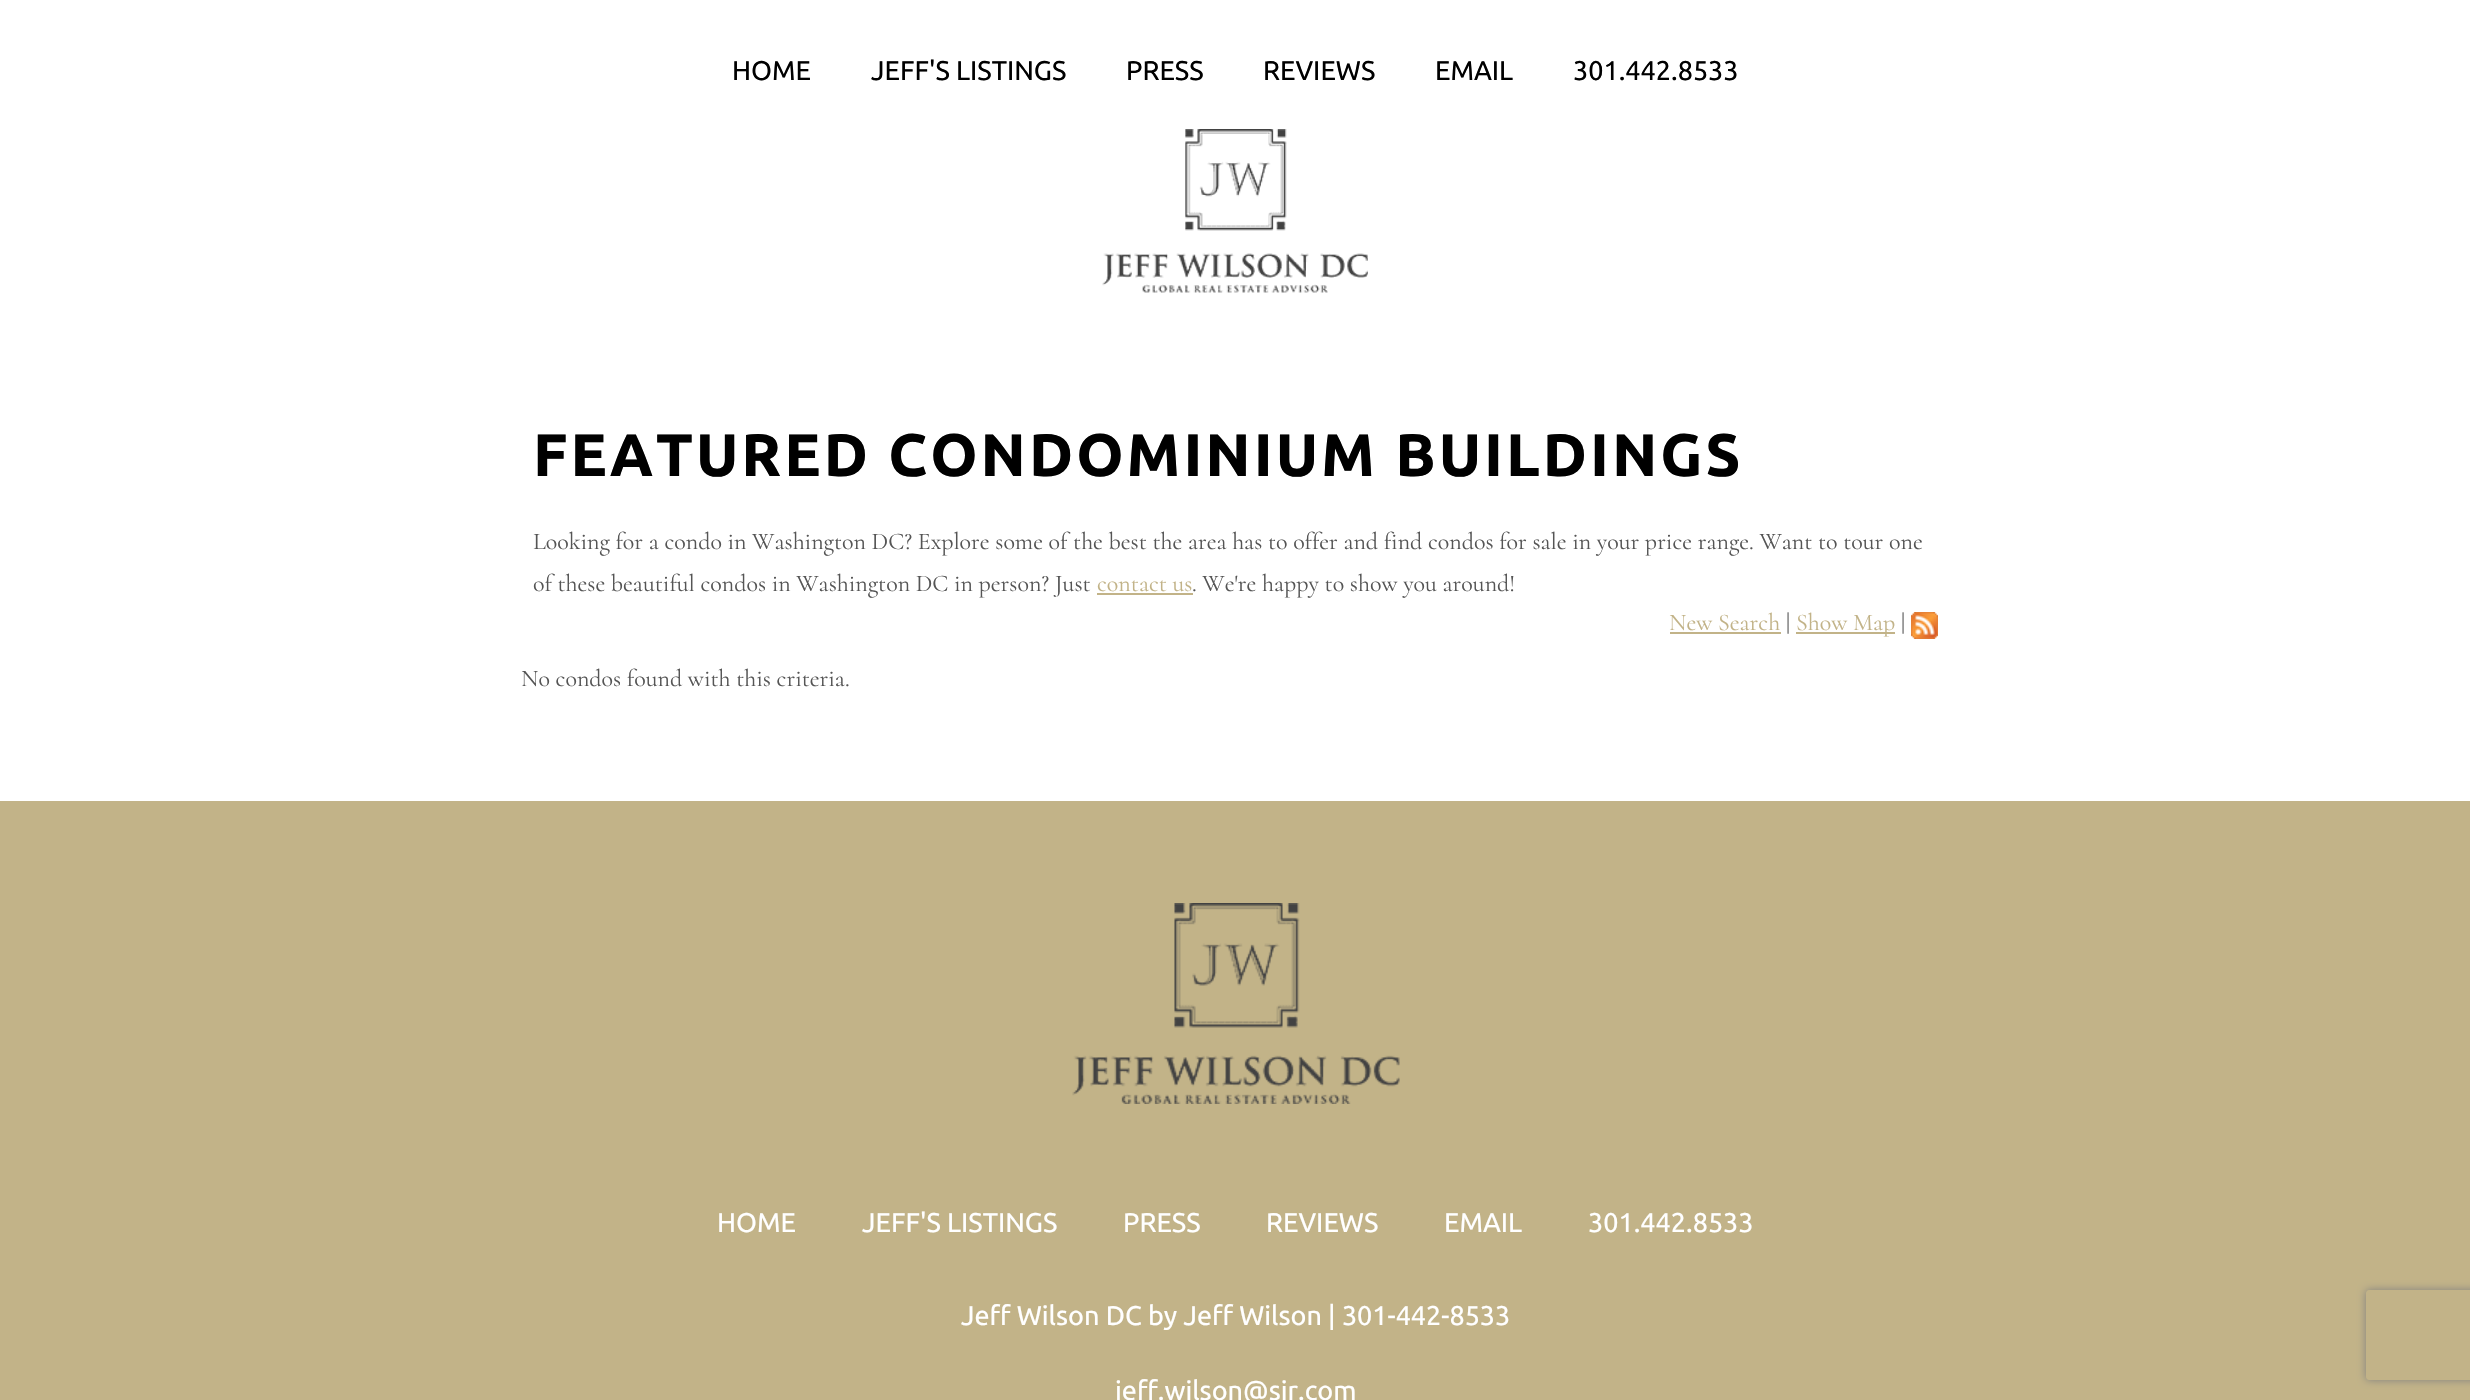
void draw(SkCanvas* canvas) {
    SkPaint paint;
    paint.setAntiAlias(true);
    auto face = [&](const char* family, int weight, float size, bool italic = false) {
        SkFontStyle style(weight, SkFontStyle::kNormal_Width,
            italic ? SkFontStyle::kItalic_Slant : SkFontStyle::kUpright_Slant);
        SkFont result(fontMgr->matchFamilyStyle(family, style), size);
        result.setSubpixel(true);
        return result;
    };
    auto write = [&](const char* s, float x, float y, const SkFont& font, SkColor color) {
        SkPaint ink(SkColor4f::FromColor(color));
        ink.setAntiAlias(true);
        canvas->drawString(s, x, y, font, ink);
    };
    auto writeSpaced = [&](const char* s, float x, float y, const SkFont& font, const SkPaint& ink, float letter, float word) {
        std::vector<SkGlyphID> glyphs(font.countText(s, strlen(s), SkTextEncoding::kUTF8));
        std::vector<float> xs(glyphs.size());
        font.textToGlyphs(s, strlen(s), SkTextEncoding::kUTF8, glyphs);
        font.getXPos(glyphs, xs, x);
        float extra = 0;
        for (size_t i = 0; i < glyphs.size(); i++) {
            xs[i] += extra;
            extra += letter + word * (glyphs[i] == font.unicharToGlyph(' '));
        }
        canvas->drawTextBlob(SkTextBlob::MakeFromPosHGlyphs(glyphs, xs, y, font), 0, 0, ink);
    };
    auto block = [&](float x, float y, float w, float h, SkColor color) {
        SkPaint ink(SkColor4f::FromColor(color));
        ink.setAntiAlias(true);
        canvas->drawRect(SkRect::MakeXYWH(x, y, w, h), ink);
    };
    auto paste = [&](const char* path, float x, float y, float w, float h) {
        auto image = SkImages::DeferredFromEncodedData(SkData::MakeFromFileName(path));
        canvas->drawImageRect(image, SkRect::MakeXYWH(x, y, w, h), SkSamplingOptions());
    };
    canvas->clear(SK_ColorWHITE);
    auto kFont1 = face("Ubuntu", 400, 27);
    write("HOME", 732, 80, kFont1, SK_ColorBLACK);
    write("JEFF'S LISTINGS", 871, 80, kFont1, SK_ColorBLACK);
    write("PRESS", 1126, 80, kFont1, SK_ColorBLACK);
    write("REVIEWS", 1263, 80, kFont1, SK_ColorBLACK);
    write("EMAIL", 1435, 80, kFont1, SK_ColorBLACK);
    write("301.442.8533", 1573, 80, kFont1, SK_ColorBLACK);
    paste("pic1.png", 1102, 129, 266, 164);
    auto kFont2 = face("Ubuntu", 700, 60);
    paint.setColor(SK_ColorBLACK);
    writeSpaced("FEATURED CONDOMINIUM BUILDINGS", 533, 476, kFont2, paint, 3, 0);
    auto kFont3 = face("Cormorant", 400, 24);
    write("Looking for a condo in Washington DC? Explore some of the best the area has to offer and find condos for sale in your price range. Want to tour one", 533, 549, kFont3, SkColorSetRGB(85, 85, 85));
    write("of these beautiful condos in Washington DC in person? Just", 533, 591, kFont3, SkColorSetRGB(85, 85, 85));
    write("contact us", 1097, 591, kFont3, SkColorSetRGB(194, 179, 136));
    block(1097, 593, 96, 2, SkColorSetRGB(194, 179, 136));
    write(". We're happy to show you around!", 1192, 591, kFont3, SkColorSetRGB(85, 85, 85));
    write("New Search", 1669, 630, kFont3, SkColorSetRGB(194, 179, 136));
    block(1670, 632, 111, 2, SkColorSetRGB(194, 179, 136));
    write("|", 1786, 630, kFont3, SkColorSetRGB(85, 85, 85));
    block(1796, 632, 99, 2, SkColorSetRGB(194, 179, 136));
    write("Show Map", 1796, 630, kFont3, SkColorSetRGB(194, 179, 136));
    write("|", 1901, 630, kFont3, SkColorSetRGB(85, 85, 85));
    paste("pic2.png", 1911, 612, 27, 27);
    write("No condos found with this criteria.", 521, 686, kFont3, SkColorSetRGB(85, 85, 85));
    block(0, 801, 2470, 599, SkColorSetRGB(194, 179, 136));
    paste("pic3.png", 1072, 903, 328, 201);
    write("HOME", 717, 1232, kFont1, SK_ColorWHITE);
    write("JEFF'S LISTINGS", 862, 1232, kFont1, SK_ColorWHITE);
    write("PRESS", 1123, 1232, kFont1, SK_ColorWHITE);
    write("REVIEWS", 1266, 1232, kFont1, SK_ColorWHITE);
    write("EMAIL", 1444, 1232, kFont1, SK_ColorWHITE);
    write("301.442.8533", 1588, 1232, kFont1, SK_ColorWHITE);
    write("Jeff Wilson DC by Jeff Wilson | 301-442-8533", 961, 1325, kFont1, SK_ColorWHITE);
    write("jeff.wilson@sir.com", 1115, 1400, kFont1, SK_ColorWHITE);
    canvas->save();
    canvas->clipPath(SkPathBuilder(SkPathFillType::kEvenOdd).moveTo(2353, 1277).lineTo(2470, 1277).lineTo(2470, 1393).lineTo(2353, 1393).close().moveTo(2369, 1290).lineTo(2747, 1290).cubicTo(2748.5f, 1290, 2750, 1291.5f, 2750, 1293).lineTo(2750, 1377).cubicTo(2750, 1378.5f, 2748.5f, 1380, 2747, 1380).lineTo(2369, 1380).cubicTo(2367.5f, 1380, 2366, 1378.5f, 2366, 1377).lineTo(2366, 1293).cubicTo(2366, 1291.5f, 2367.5f, 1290, 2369, 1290).close().detach(), true);
    paint.setColor(SkColorSetRGB(128, 128, 128));
    paint.setMaskFilter(SkMaskFilter::MakeBlur(kNormal_SkBlurStyle, 4));
    canvas->drawRoundRect(SkRect::MakeXYWH(2366, 1290, 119, 90), 3, 3, paint);
    paint.setMaskFilter(nullptr);
    canvas->restore();
}
